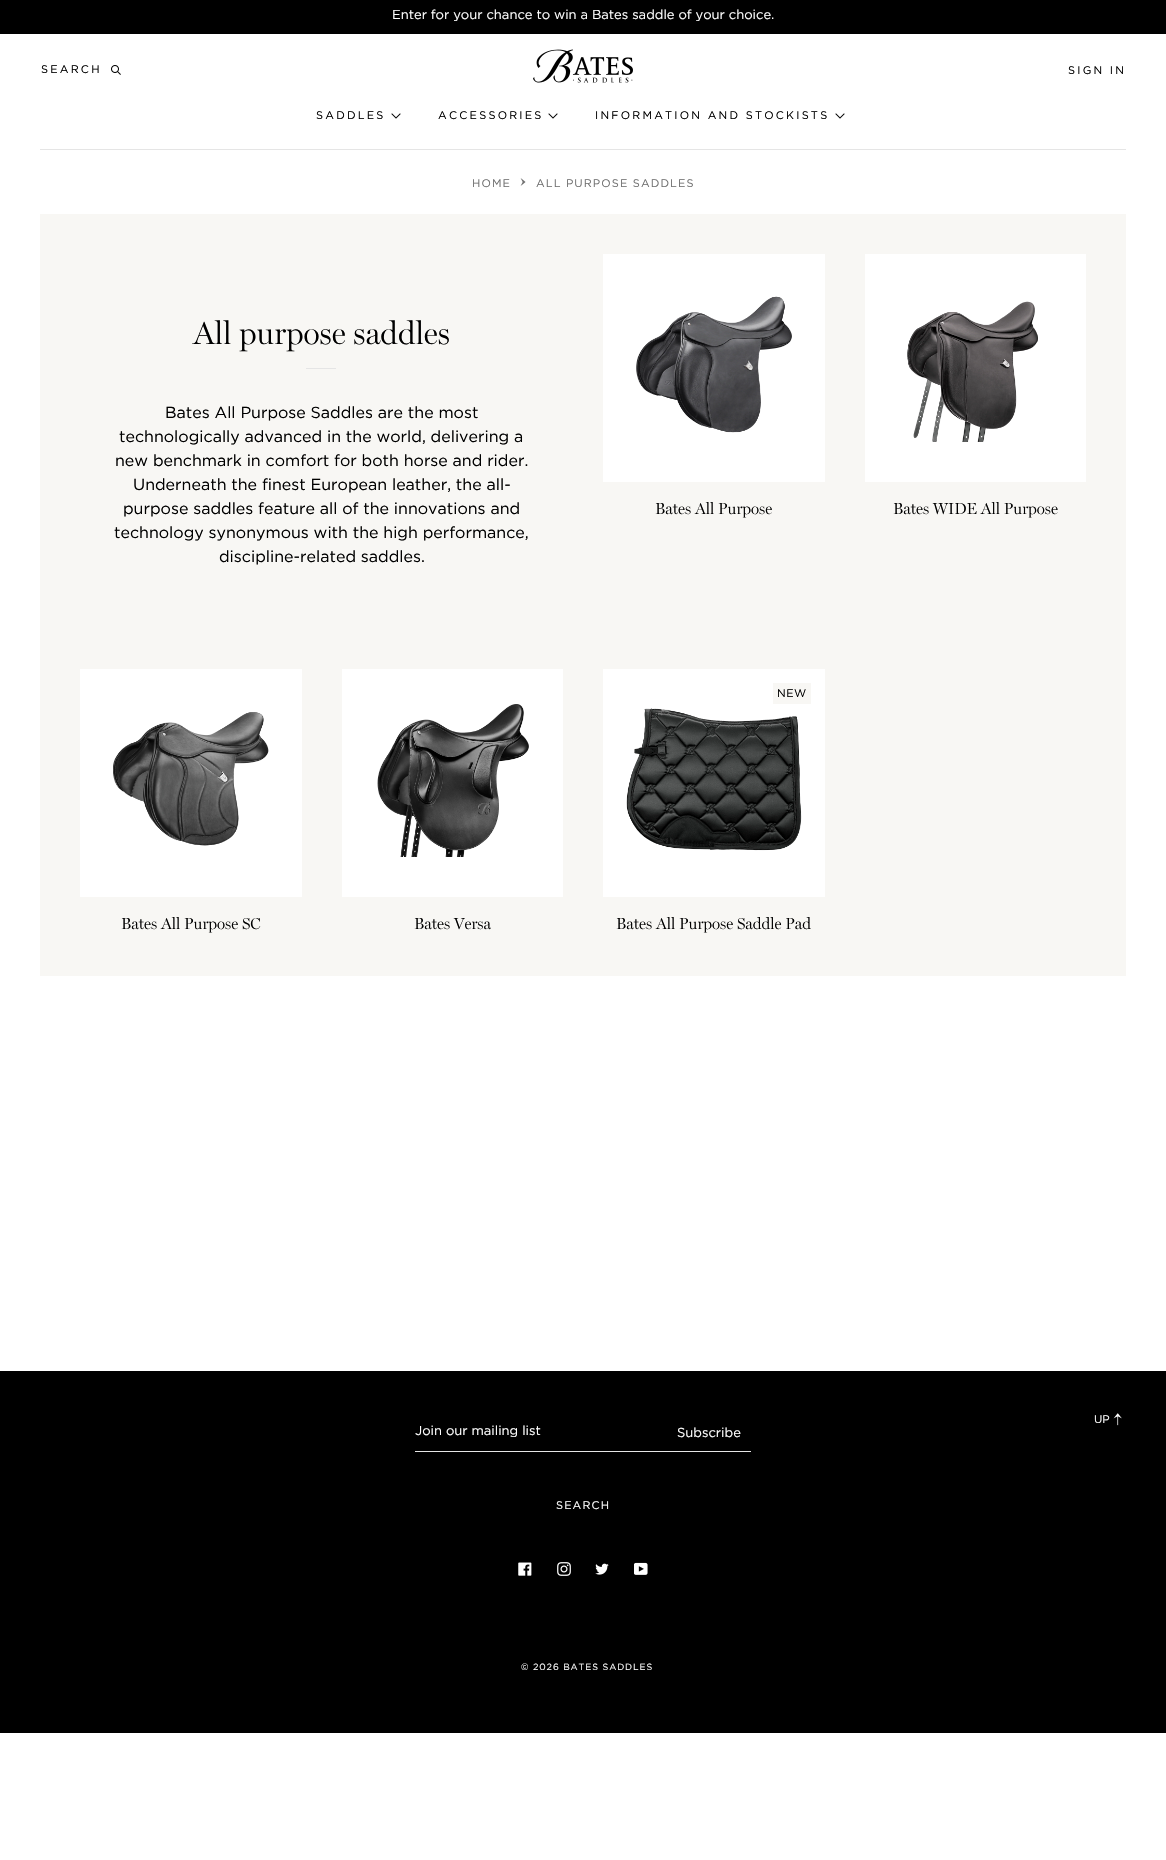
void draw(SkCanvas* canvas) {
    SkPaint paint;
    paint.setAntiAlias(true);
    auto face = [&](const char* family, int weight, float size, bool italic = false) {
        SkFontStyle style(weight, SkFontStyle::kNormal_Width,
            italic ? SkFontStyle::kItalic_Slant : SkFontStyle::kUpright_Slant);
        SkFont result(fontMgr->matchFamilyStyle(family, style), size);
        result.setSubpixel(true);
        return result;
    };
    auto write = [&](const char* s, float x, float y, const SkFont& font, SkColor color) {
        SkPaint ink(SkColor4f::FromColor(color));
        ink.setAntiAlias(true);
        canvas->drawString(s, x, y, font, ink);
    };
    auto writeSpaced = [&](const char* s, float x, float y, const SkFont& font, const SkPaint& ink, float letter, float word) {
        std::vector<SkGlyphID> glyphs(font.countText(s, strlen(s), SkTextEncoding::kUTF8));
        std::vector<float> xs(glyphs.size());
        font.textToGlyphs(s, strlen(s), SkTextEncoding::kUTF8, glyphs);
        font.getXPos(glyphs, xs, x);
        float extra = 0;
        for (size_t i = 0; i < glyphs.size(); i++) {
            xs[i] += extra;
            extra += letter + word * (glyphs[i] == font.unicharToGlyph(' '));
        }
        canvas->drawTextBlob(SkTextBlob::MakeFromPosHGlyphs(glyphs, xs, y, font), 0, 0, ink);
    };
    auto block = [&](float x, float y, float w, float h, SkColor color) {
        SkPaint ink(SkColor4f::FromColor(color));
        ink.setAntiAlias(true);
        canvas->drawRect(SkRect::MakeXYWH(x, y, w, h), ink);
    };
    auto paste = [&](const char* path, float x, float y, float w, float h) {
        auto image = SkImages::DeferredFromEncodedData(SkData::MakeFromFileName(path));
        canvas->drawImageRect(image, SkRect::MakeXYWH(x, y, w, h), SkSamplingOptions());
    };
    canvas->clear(SK_ColorWHITE);
    block(0, 0, 1166, 34, SK_ColorBLACK);
    auto kFont1 = face("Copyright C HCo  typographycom", 300, 13);
    write("Enter for your chance to win a Bates saddle of your choice.", 392, 19, kFont1, SK_ColorWHITE);
    auto kFont2 = face("Copyright C HCo  typographycom", 300, 11);
    paint.setColor(SK_ColorBLACK);
    writeSpaced("SEARCH", 41, 73, kFont2, paint, 2.2f, 0);
    paste("pic1.png", 111, 65, 10, 10);
    paste("pic2.png", 533, 49, 100, 34);
    writeSpaced("SIGN IN", 1068, 74, kFont2, paint, 2.2f, 0);
    writeSpaced("SADDLES", 316, 119, kFont2, paint, 2.2f, 0);
    paste("pic3.png", 391, 113, 10, 6);
    writeSpaced("ACCESSORIES", 438, 119, kFont2, paint, 2.2f, 0);
    paste("pic3.png", 548, 113, 10, 6);
    writeSpaced("INFORMATION AND STOCKISTS", 595, 119, kFont2, paint, 2.2f, 0);
    paste("pic3.png", 835, 113, 10, 6);
    block(40, 149, 1086, 1, SkColorSetRGB(229, 229, 229));
    paint.setColor(SkColorSetRGB(112, 112, 112));
    writeSpaced("HOME", 472, 187, kFont2, paint, 1.1f, 0);
    paste("pic4.png", 520, 178, 6, 8);
    writeSpaced("ALL PURPOSE SADDLES", 536, 187, kFont2, paint, 1.1f, 0);
    block(40, 214, 1086, 762, SkColorSetRGB(248, 247, 244));
    auto kFont3 = face("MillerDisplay", 300, 32);
    write("All purpose saddles", 193, 344, kFont3, SK_ColorBLACK);
    block(306, 368, 30, 1, SkColorSetRGB(229, 229, 229));
    auto kFont4 = face("Copyright C HCo  typographycom", 300, 16);
    write("Bates All Purpose Saddles are the most", 165, 418, kFont4, SK_ColorBLACK);
    write("technologically advanced in the world, delivering a", 119, 442, kFont4, SK_ColorBLACK);
    write("new benchmark in comfort for both horse and rider.", 115, 466, kFont4, SK_ColorBLACK);
    write("Underneath the finest European leather, the all-", 133, 490, kFont4, SK_ColorBLACK);
    write("purpose saddles feature all of the innovations and", 123, 514, kFont4, SK_ColorBLACK);
    write("technology synonymous with the high performance,", 114, 538, kFont4, SK_ColorBLACK);
    write("discipline-related saddles.", 219, 562, kFont4, SK_ColorBLACK);
    block(603, 254, 222, 228, SK_ColorWHITE);
    paste("pic5.png", 636, 296, 156, 137);
    auto kFont5 = face("MillerDisplay", 300, 16);
    write("Bates All Purpose", 655, 514, kFont5, SK_ColorBLACK);
    block(865, 254, 221, 228, SK_ColorWHITE);
    paste("pic6.png", 907, 301, 131, 141);
    write("Bates WIDE All Purpose", 893, 514, kFont5, SK_ColorBLACK);
    block(80, 669, 222, 228, SK_ColorWHITE);
    paste("pic7.png", 113, 712, 156, 134);
    write("Bates All Purpose SC", 121, 929, kFont5, SK_ColorBLACK);
    block(342, 669, 221, 228, SK_ColorWHITE);
    paste("pic8.png", 377, 704, 152, 153);
    write("Bates Versa", 414, 929, kFont5, SK_ColorBLACK);
    block(603, 669, 222, 228, SK_ColorWHITE);
    paste("pic9.png", 626, 708, 176, 143);
    block(773, 683, 38, 21, SkColorSetRGB(248, 247, 244));
    paint.setColor(SK_ColorBLACK);
    writeSpaced("NEW", 777, 697, kFont2, paint, 0.5f, 0);
    write("Bates All Purpose Saddle Pad", 616, 929, kFont5, SK_ColorBLACK);
    block(0, 1371, 1166, 362, SK_ColorBLACK);
    write("UP", 1094, 1423, kFont2, SK_ColorWHITE);
    paste("pic10.png", 1113, 1413, 9, 13);
    block(415, 1451, 336, 1, SkColorSetRGB(229, 229, 229));
    write("Join our mailing list", 415, 1435, kFont1, SK_ColorWHITE);
    write("Subscribe", 677, 1437, kFont1, SK_ColorWHITE);
    paint.setColor(SK_ColorWHITE);
    writeSpaced("SEARCH", 556, 1509, kFont2, paint, 1.1f, 0);
    paste("pic11.png", 518, 1562, 14, 14);
    paste("pic12.png", 557, 1562, 14, 14);
    paste("pic13.png", 595, 1563, 14, 12);
    paste("pic14.png", 634, 1562, 14, 13);
    auto kFont6 = face("Copyright C HCo  typographycom", 300, 9);
    writeSpaced("© 2026 BATES SADDLES", 521, 1670, kFont6, paint, 0.9f, 0);
}
